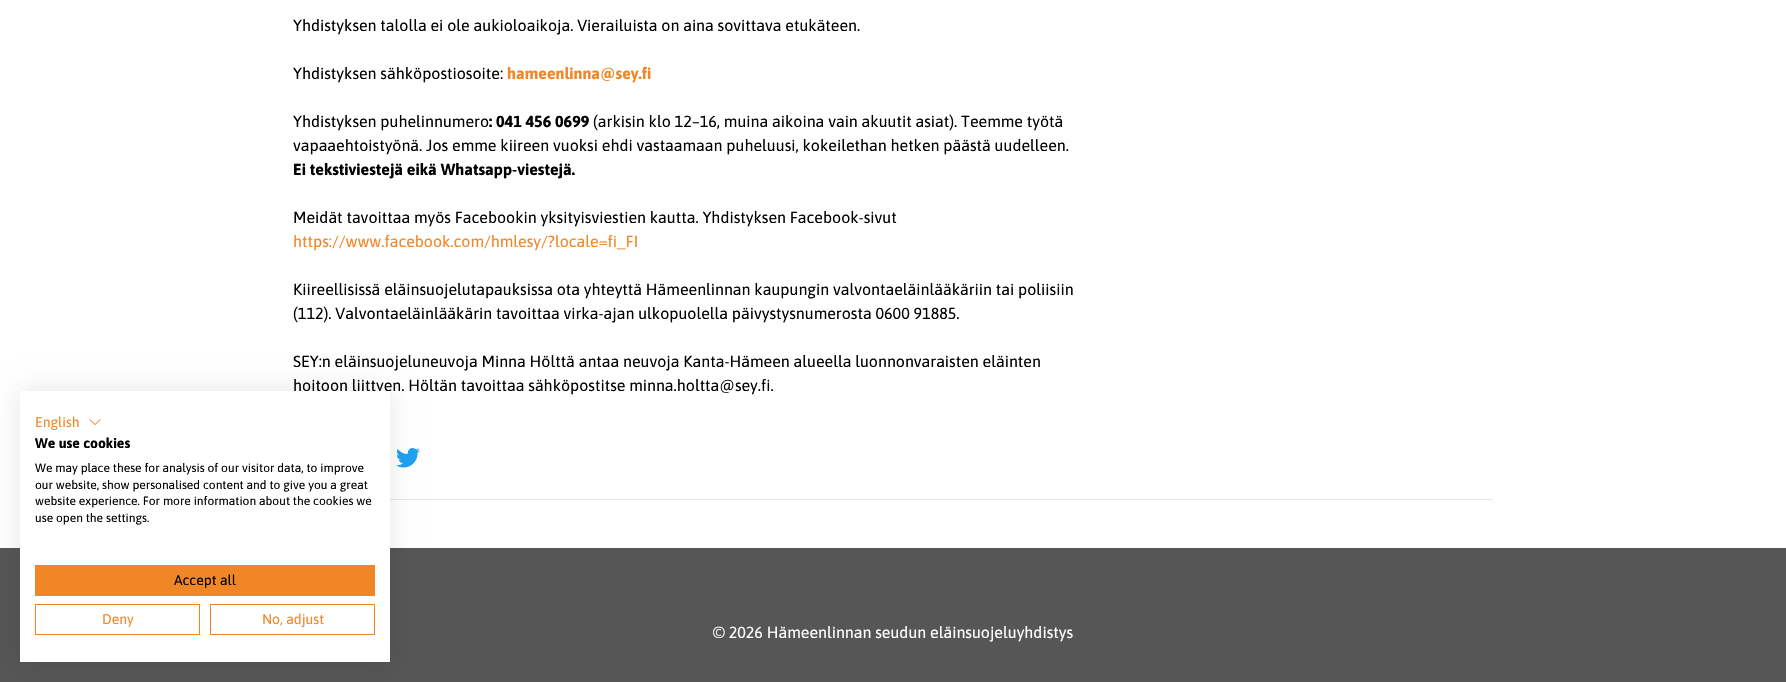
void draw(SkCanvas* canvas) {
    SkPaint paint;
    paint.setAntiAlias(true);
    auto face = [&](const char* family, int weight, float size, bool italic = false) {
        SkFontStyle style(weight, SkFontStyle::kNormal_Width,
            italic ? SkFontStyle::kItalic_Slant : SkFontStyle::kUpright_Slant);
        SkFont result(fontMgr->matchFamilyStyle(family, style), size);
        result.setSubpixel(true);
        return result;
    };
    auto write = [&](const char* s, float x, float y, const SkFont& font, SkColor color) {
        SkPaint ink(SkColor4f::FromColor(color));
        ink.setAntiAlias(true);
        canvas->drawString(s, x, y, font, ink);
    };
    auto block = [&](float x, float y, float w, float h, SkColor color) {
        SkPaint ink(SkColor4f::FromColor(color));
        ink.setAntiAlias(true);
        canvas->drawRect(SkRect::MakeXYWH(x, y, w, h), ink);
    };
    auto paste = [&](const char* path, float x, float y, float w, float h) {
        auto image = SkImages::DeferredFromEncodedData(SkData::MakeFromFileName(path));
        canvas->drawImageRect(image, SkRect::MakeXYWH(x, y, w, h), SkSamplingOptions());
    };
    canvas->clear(SK_ColorWHITE);
    auto kFont1 = face("Asap", 400, 16);
    write("Yhdistyksen talolla ei ole aukioloaikoja. Vierailuista on aina sovittava etukäteen.", 293, 31, kFont1, SK_ColorBLACK);
    write("Yhdistyksen sähköpostiosoite:", 293, 79, kFont1, SK_ColorBLACK);
    auto kFont2 = face("Asap", 700, 16);
    write("hameenlinna@sey.fi", 507, 79, kFont2, SkColorSetRGB(241, 134, 38));
    write("Yhdistyksen puhelinnumero", 293, 127, kFont1, SK_ColorBLACK);
    write(": 041 456 0699", 489, 127, kFont2, SK_ColorBLACK);
    write("(arkisin klo 12–16, muina aikoina vain akuutit asiat). Teemme työtä", 593, 127, kFont1, SK_ColorBLACK);
    write("vapaaehtoistyönä. Jos emme kiireen vuoksi ehdi vastaamaan puheluusi, kokeilethan hetken päästä uudelleen.", 293, 151, kFont1, SK_ColorBLACK);
    write("Ei tekstiviestejä eikä Whatsapp-viestejä.", 293, 175, kFont2, SK_ColorBLACK);
    write("Meidät tavoittaa myös Facebookin yksityisviestien kautta. Yhdistyksen Facebook-sivut", 293, 223, kFont1, SK_ColorBLACK);
    write("https://www.facebook.com/hmlesy/?locale=fi_FI", 293, 247, kFont1, SkColorSetRGB(241, 134, 38));
    write("Kiireellisissä eläinsuojelutapauksissa ota yhteyttä Hämeenlinnan kaupungin valvontaeläinlääkäriin tai poliisiin", 293, 295, kFont1, SK_ColorBLACK);
    write("(112). Valvontaeläinlääkärin tavoittaa virka-ajan ulkopuolella päivystysnumerosta 0600 91885.", 293, 319, kFont1, SK_ColorBLACK);
    write("SEY:n eläinsuojeluneuvoja Minna Hölttä antaa neuvoja Kanta-Hämeen alueella luonnonvaraisten eläinten", 293, 367, kFont1, SK_ColorBLACK);
    write("hoitoon liittyen. Höltän tavoittaa sähköpostitse minna.holtta@sey.fi.", 293, 391, kFont1, SK_ColorBLACK);
    block(390, 499, 1103, 1, SkColorSetRGB(230, 230, 230));
    paste("pic1.png", 396, 448, 24, 20);
    block(0, 548, 1786, 134, SkColorSetRGB(86, 86, 86));
    paint.setColor(SkColorSetARGB(26, 0, 0, 0));
    paint.setMaskFilter(SkMaskFilter::MakeBlur(kNormal_SkBlurStyle, 12));
    canvas->drawRect(SkRect::MakeXYWH(20, 391, 370, 271), paint);
    paint.setMaskFilter(nullptr);
    block(20, 391, 370, 271, SK_ColorWHITE);
    auto kFont3 = face("Asap", 400, 14);
    write("English", 35, 427, kFont3, SkColorSetRGB(241, 134, 38));
    paste("pic2.png", 89, 419, 12, 6);
    auto kFont4 = face("Asap", 700, 14);
    write("We use cookies", 35, 448, kFont4, SK_ColorBLACK);
    auto kFont5 = face("Asap", 400, 12);
    write("We may place these for analysis of our visitor data, to improve", 35, 472, kFont5, SK_ColorBLACK);
    write("our website, show personalised content and to give you a great", 35, 489, kFont5, SK_ColorBLACK);
    write("website experience. For more information about the cookies we", 35, 505, kFont5, SK_ColorBLACK);
    write("use open the settings.", 35, 522, kFont5, SK_ColorBLACK);
    block(35, 565, 340, 31, SkColorSetRGB(241, 134, 38));
    write("Accept all", 174, 585, kFont3, SK_ColorBLACK);
    paint.setStyle(SkPaint::kStroke_Style);
    paint.setStrokeWidth(1);
    paint.setColor(SkColorSetRGB(241, 134, 38));
    canvas->drawRect(SkRect::MakeXYWH(35.5f, 604.5f, 164, 30), paint);
    write("Deny", 102, 624, kFont3, SkColorSetRGB(241, 134, 38));
    canvas->drawRect(SkRect::MakeXYWH(210.5f, 604.5f, 164, 30), paint);
    write("No, adjust", 262, 624, kFont3, SkColorSetRGB(241, 134, 38));
    write("© 2026 Hämeenlinnan seudun eläinsuojeluyhdistys", 713, 638, kFont1, SK_ColorWHITE);
}
